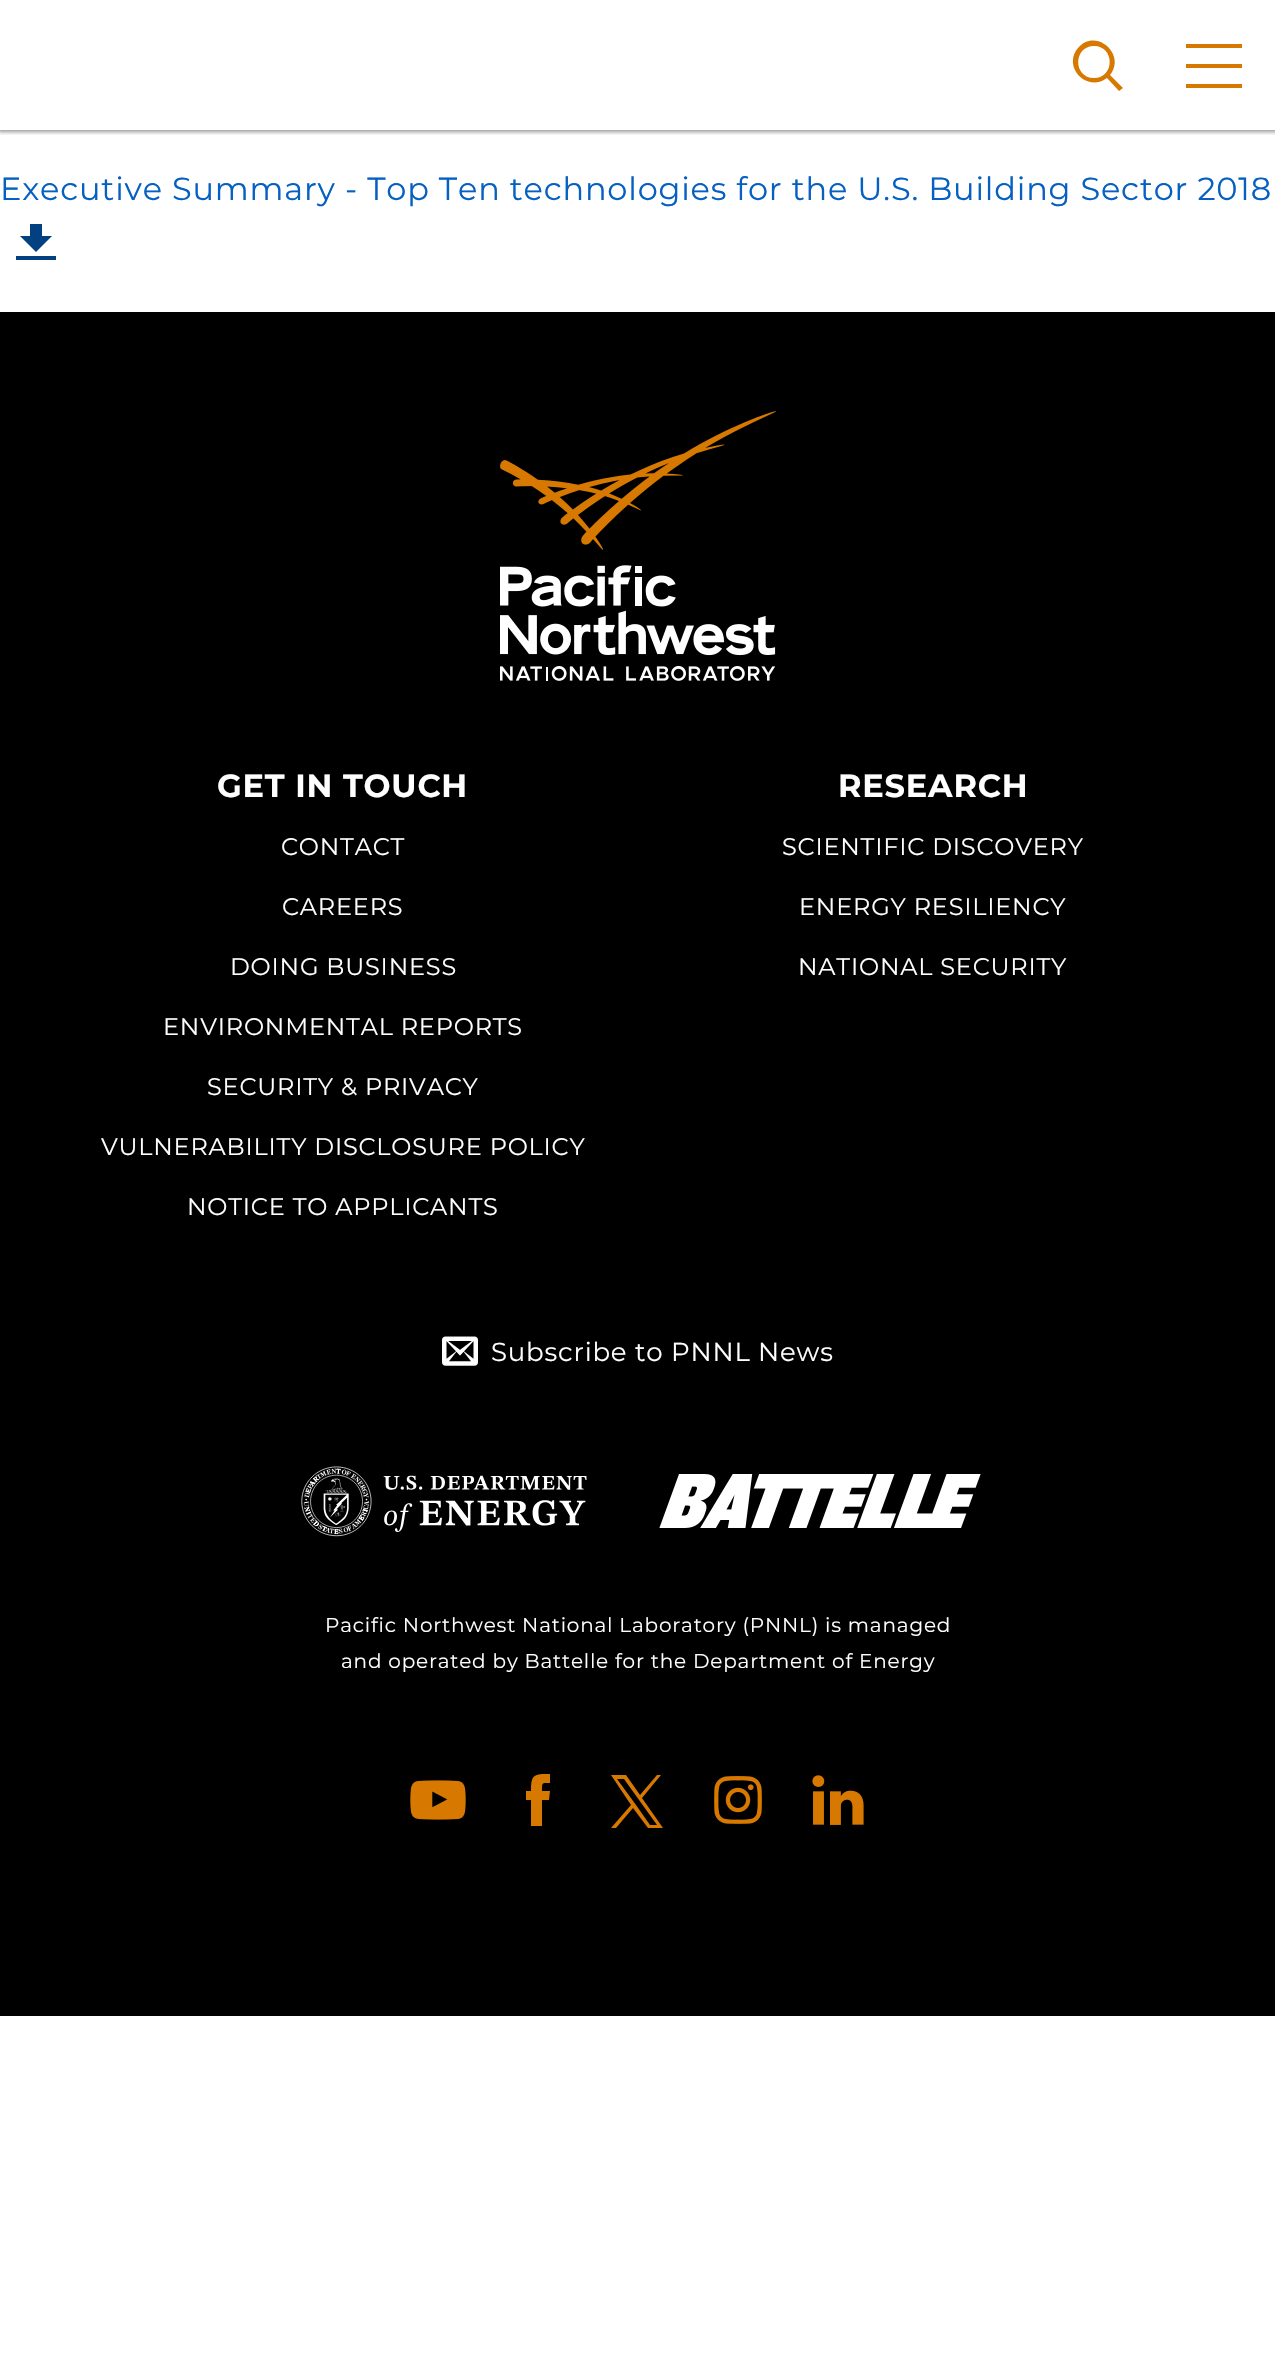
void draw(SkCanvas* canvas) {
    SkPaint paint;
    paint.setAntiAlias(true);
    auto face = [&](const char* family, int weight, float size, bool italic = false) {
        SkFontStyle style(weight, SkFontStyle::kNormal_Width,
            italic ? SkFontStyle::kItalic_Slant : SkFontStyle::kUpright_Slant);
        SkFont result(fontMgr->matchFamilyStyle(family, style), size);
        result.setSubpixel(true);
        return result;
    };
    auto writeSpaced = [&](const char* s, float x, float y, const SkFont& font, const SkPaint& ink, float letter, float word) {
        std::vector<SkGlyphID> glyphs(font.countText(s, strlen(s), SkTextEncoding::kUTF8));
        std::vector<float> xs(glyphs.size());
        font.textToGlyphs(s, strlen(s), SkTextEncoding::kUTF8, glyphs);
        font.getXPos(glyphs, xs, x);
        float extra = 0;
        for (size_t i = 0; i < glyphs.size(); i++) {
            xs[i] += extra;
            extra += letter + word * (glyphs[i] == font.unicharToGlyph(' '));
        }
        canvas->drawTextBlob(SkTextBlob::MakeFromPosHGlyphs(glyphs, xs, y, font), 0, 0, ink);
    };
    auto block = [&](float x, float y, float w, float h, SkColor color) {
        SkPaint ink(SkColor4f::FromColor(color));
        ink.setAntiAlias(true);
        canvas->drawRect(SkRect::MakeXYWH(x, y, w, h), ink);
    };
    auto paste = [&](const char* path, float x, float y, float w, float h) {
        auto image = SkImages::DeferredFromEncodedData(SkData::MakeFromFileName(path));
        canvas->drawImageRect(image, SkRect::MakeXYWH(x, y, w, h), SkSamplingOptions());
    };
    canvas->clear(SK_ColorWHITE);
    canvas->save();
    canvas->clipRect(SkRect::MakeXYWH(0, 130, 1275, 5));
    paint.setColor(SkColorSetARGB(102, 0, 0, 0));
    paint.setMaskFilter(SkMaskFilter::MakeBlur(kNormal_SkBlurStyle, 2));
    canvas->drawRect(SkRect::MakeXYWH(-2, -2, 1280, 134), paint);
    paint.setMaskFilter(nullptr);
    canvas->restore();
    paint.setColor(SkColorSetRGB(215, 121, 0));
    canvas->drawPath(SkPathBuilder().moveTo(1110, 75).cubicTo(1127, 54, 1095, 27, 1078, 48).cubicTo(1062, 67, 1087, 93, 1107, 78).lineTo(1119, 91).lineTo(1123, 88).close().moveTo(1094, 46).cubicTo(1115, 46, 1115, 78, 1094, 78).cubicTo(1073, 78, 1073, 46, 1094, 46).close().detach(), paint);
    block(1186, 44, 56, 4, SkColorSetRGB(215, 121, 0));
    block(1186, 64, 56, 4, SkColorSetRGB(215, 121, 0));
    block(1186, 84, 56, 4, SkColorSetRGB(215, 121, 0));
    auto kFont1 = face("Montserrat", 400, 32);
    paint.setColor(SkColorSetRGB(5, 96, 193));
    writeSpaced("Executive Summary - Top Ten technologies for the U.S. Building Sector 2018", 0, 200, kFont1, paint, 0.8f, 0);
    paint.setColor(SkColorSetRGB(2, 64, 130));
    canvas->drawPath(SkPathBuilder().moveTo(42, 236).lineTo(42, 224).lineTo(30, 224).lineTo(30, 236).lineTo(20, 236).lineTo(36, 252).lineTo(52, 236).close().moveTo(16, 256).lineTo(56, 256).lineTo(56, 260).lineTo(16, 260).close().detach(), paint);
    block(0, 312, 1275, 1704, SK_ColorBLACK);
    paste("pic1.png", 500, 411, 276, 270);
    auto kFont2 = face("Montserrat", 700, 32);
    paint.setColor(SK_ColorWHITE);
    writeSpaced("GET IN TOUCH", 217, 797, kFont2, paint, 0.8f, 0);
    auto kFont3 = face("Montserrat", 400, 24);
    writeSpaced("CONTACT", 281, 855, kFont3, paint, 0.8f, 0);
    writeSpaced("CAREERS", 282, 915, kFont3, paint, 0.8f, 0);
    writeSpaced("DOING BUSINESS", 230, 975, kFont3, paint, 0.8f, 0);
    writeSpaced("ENVIRONMENTAL REPORTS", 163, 1035, kFont3, paint, 0.8f, 0);
    writeSpaced("SECURITY & PRIVACY", 207, 1095, kFont3, paint, 0.8f, 0);
    writeSpaced("VULNERABILITY DISCLOSURE POLICY", 101, 1155, kFont3, paint, 0.8f, 0);
    writeSpaced("NOTICE TO APPLICANTS", 187, 1215, kFont3, paint, 0.8f, 0);
    writeSpaced("RESEARCH", 838, 797, kFont2, paint, 0.8f, 0);
    writeSpaced("SCIENTIFIC DISCOVERY", 782, 855, kFont3, paint, 0.8f, 0);
    writeSpaced("ENERGY RESILIENCY", 799, 915, kFont3, paint, 0.8f, 0);
    writeSpaced("NATIONAL SECURITY", 798, 975, kFont3, paint, 0.8f, 0);
    paste("pic2.png", 442, 1336, 36, 30);
    auto kFont4 = face("Montserrat", 400, 26);
    writeSpaced("Subscribe to PNNL News", 491, 1361, kFont4, paint, 0.8f, 0);
    paste("pic3.png", 301, 1466, 286, 71);
    paste("pic4.png", 659, 1474, 322, 54);
    auto kFont5 = face("Montserrat", 400, 20);
    writeSpaced("Pacific Northwest National Laboratory (PNNL) is managed", 325, 1632, kFont5, paint, 0.8f, 0);
    writeSpaced("and operated by Battelle for the Department of Energy", 341, 1668, kFont5, paint, 0.8f, 0);
    paste("pic5.png", 410, 1780, 56, 40);
    paint.setColor(SkColorSetRGB(215, 121, 0));
    canvas->drawPath(SkPathBuilder().moveTo(550, 1791).lineTo(549, 1800).lineTo(542, 1800).lineTo(542, 1826).lineTo(531, 1826).lineTo(531, 1800).lineTo(526, 1800).lineTo(526, 1791).lineTo(531, 1791).cubicTo(531, 1774, 534, 1774, 550, 1774).lineTo(550, 1783).cubicTo(542, 1783, 542, 1782, 542, 1791).close().detach(), paint);
    canvas->drawPath(SkPathBuilder().moveTo(642, 1798).lineTo(661, 1775).lineTo(657, 1775).lineTo(640, 1795).lineTo(626, 1775).lineTo(611, 1775).lineTo(631, 1805).lineTo(611, 1828).lineTo(616, 1828).lineTo(633, 1808).lineTo(648, 1828).lineTo(663, 1828).close().moveTo(636, 1805).lineTo(617, 1779).lineTo(624, 1779).lineTo(657, 1825).lineTo(650, 1825).close().detach(), paint);
    paste("pic6.png", 714, 1776, 48, 48);
    paste("pic7.png", 812, 1775, 52, 50);
}
